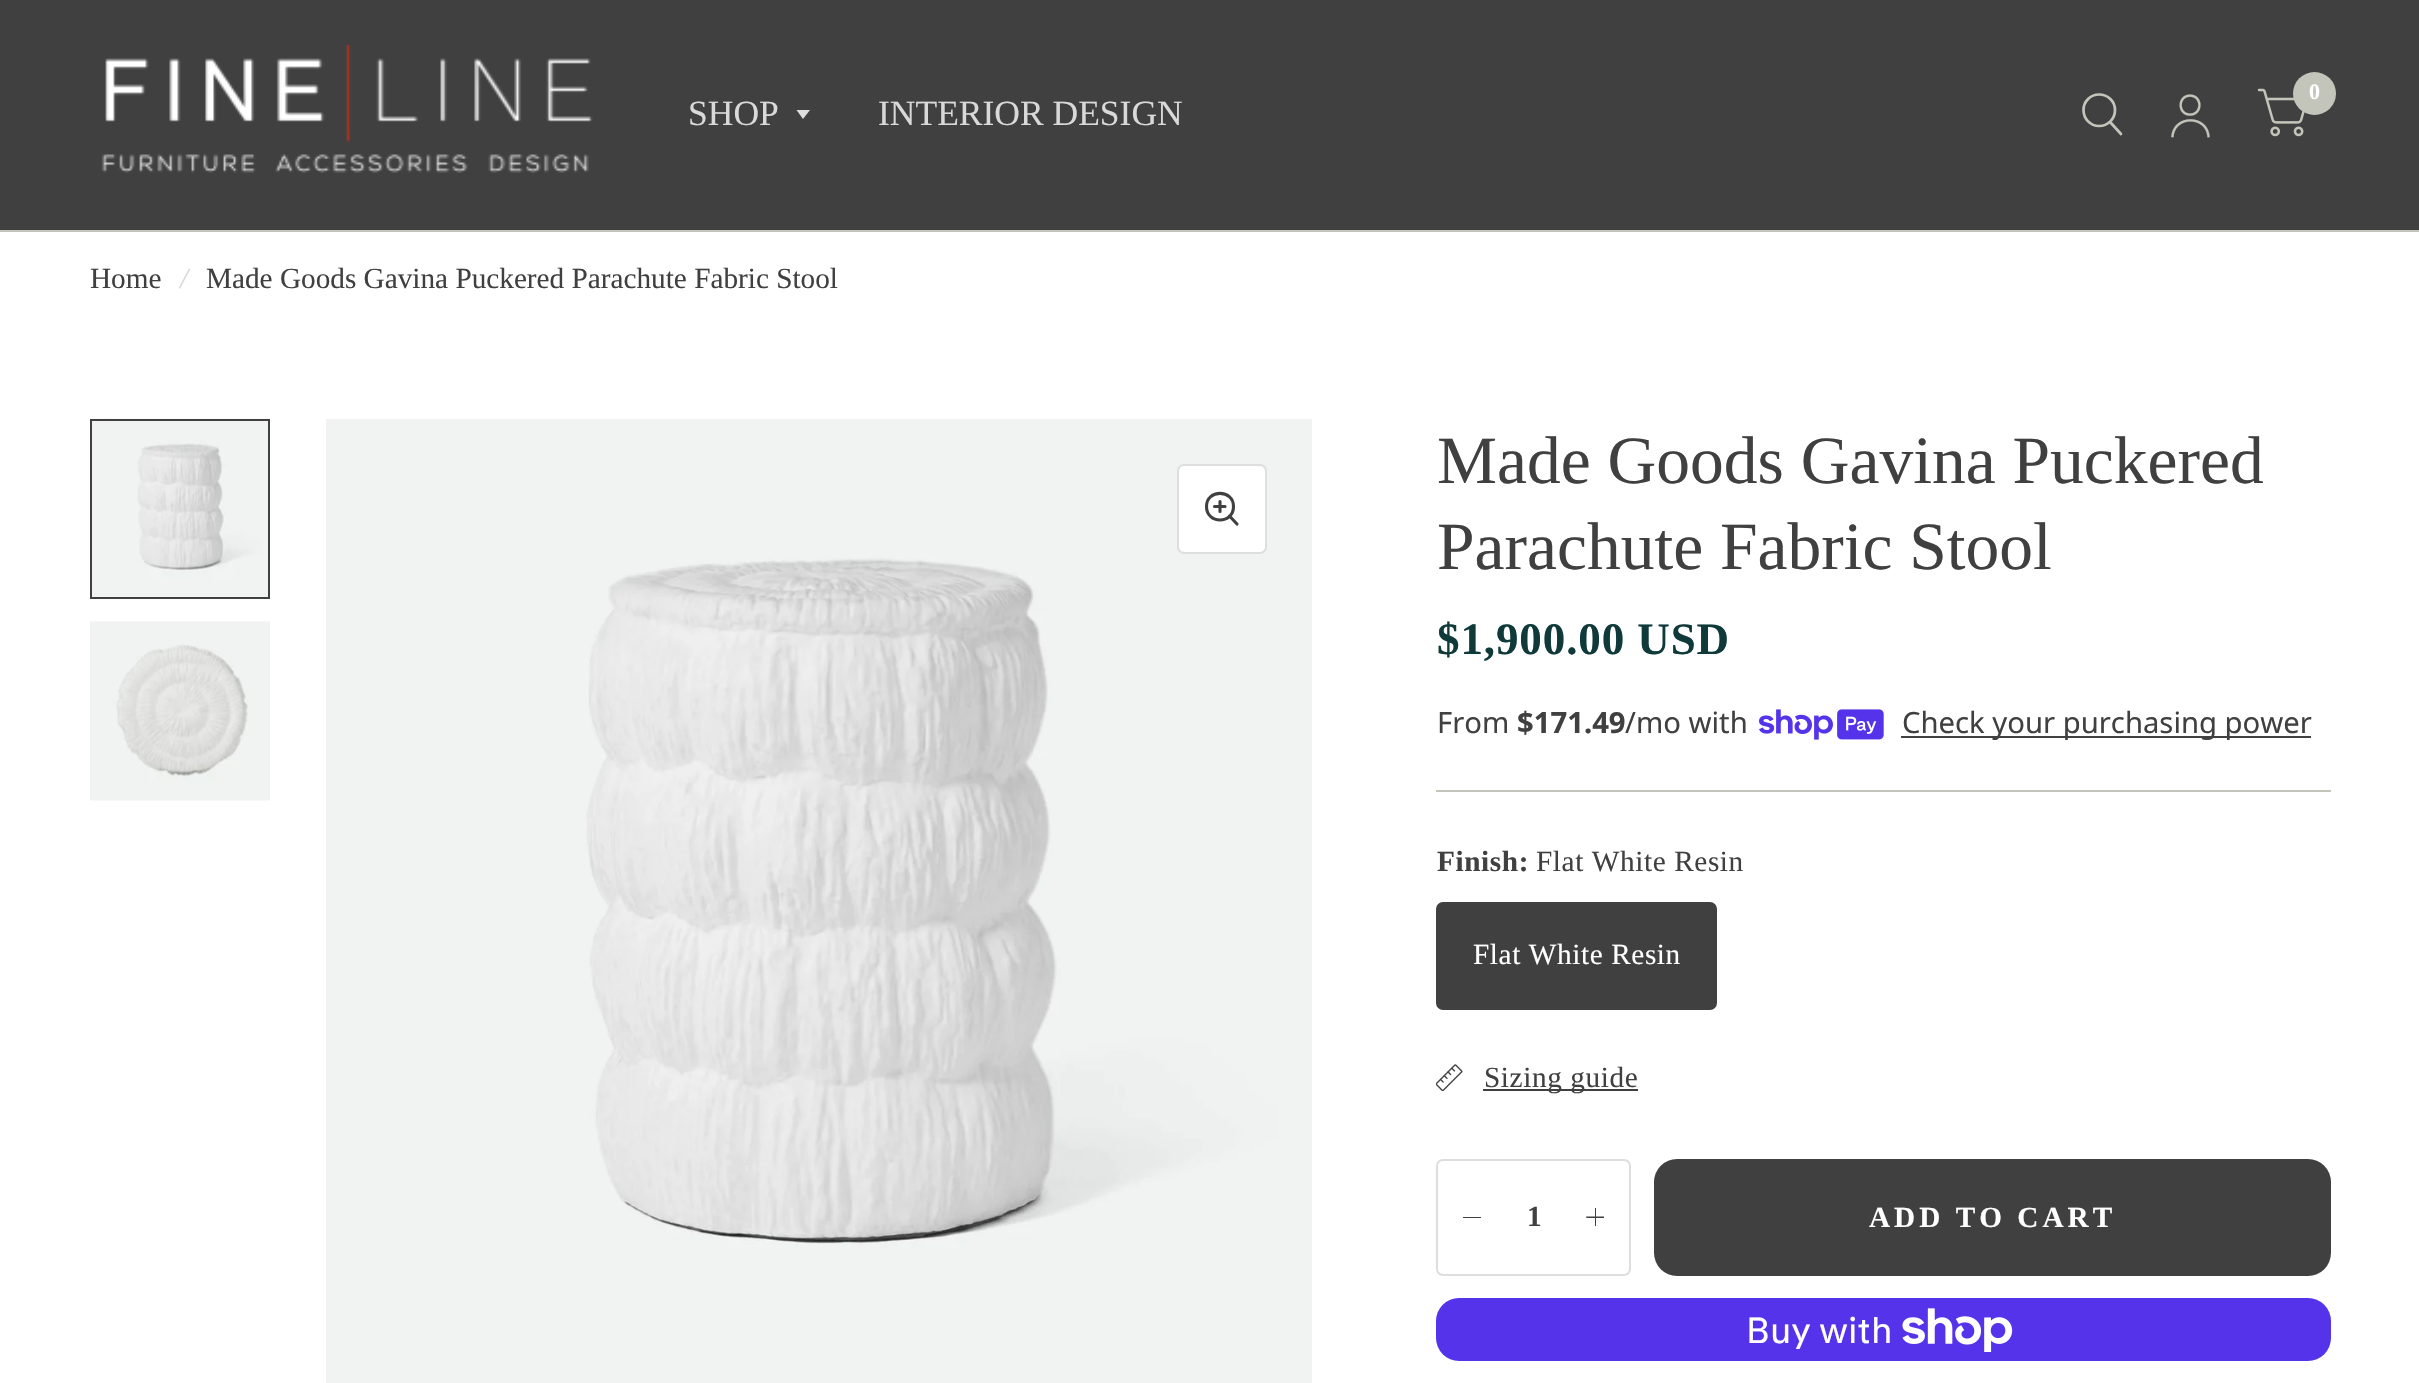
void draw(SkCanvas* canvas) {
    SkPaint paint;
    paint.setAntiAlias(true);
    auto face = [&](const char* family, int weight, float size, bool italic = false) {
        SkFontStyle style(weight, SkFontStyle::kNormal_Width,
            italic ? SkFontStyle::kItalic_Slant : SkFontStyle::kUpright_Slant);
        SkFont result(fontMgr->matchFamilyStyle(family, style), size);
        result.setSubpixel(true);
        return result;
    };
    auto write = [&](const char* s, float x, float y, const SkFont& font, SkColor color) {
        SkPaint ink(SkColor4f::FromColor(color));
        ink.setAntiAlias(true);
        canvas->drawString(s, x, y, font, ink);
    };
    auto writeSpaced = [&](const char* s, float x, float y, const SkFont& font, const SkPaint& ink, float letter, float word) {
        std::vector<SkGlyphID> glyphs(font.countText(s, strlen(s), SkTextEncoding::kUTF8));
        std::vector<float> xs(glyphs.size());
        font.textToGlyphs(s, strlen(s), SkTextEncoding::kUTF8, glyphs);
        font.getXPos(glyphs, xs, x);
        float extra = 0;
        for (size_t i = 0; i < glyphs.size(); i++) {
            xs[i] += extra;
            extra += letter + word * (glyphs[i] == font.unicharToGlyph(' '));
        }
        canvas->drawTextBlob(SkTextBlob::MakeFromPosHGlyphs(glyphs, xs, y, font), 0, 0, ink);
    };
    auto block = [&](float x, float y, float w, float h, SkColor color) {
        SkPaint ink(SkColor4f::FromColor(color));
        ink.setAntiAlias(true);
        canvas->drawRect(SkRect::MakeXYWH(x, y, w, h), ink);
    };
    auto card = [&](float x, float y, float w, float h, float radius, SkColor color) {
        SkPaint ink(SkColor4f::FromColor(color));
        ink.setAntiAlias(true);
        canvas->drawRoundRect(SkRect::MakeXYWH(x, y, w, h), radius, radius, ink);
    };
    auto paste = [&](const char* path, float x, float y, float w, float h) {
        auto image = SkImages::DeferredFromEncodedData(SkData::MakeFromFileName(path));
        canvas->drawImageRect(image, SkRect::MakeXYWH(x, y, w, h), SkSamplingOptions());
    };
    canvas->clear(SK_ColorWHITE);
    block(0, 0, 2419, 230, SkColorSetRGB(64, 64, 64));
    block(0, 230, 2419, 2, SkColorSetRGB(196, 197, 186));
    paint.setStyle(SkPaint::kStroke_Style);
    paint.setStrokeWidth(2.7f);
    paint.setStrokeCap(SkPaint::kRound_Cap);
    paint.setStrokeJoin(SkPaint::kRound_Join);
    paint.setColor(SkColorSetRGB(196, 197, 186));
    canvas->drawPath(SkPathBuilder().moveTo(2110.5f, 122.5f).lineTo(2121, 134).moveTo(2115, 110).cubicTo(2115, 119, 2108, 126, 2099, 126).cubicTo(2090.5f, 126, 2083.5f, 119, 2083.5f, 110).cubicTo(2083.5f, 101.5f, 2090.5f, 94.5f, 2099, 94.5f).cubicTo(2108, 94.5f, 2115, 101.5f, 2115, 110).close().detach(), paint);
    paste("pic1.png", 2171, 94, 39, 44);
    paste("pic2.png", 2257, 88, 48, 49);
    paint.setStyle(SkPaint::kFill_Style);
    canvas->drawCircle(2314.5f, 93.5f, 21.5f, paint);
    auto kFont1 = face("Liberation Serif", 700, 22);
    write("0", 2309, 99, kFont1, SK_ColorWHITE);
    paste("pic3.png", 101, 45, 492, 128);
    auto kFont2 = face("Liberation Serif", 400, 35.5f);
    write("SHOP", 688, 125, kFont2, SkColorSetRGB(217, 217, 217));
    paint.setColor(SkColorSetRGB(222, 222, 222));
    canvas->drawPath(SkPathBuilder().moveTo(796.5f, 110).lineTo(810, 110).lineTo(803, 119).close().detach(), paint);
    write("INTERIOR DESIGN", 878, 125, kFont2, SkColorSetRGB(217, 217, 217));
    auto kFont3 = face("Liberation Serif", 400, 29.25f);
    write("Home", 90, 288, kFont3, SkColorSetRGB(64, 64, 64));
    auto kFont4 = face("Liberation Serif", 400, 29.25f, true);
    write("/", 180, 288, kFont4, SkColorSetRGB(217, 217, 217));
    write("Made Goods Gavina Puckered Parachute Fabric Stool", 206, 288, kFont3, SkColorSetRGB(64, 64, 64));
    paste("pic4.png", 90, 418, 180, 179);
    paint.setStyle(SkPaint::kStroke_Style);
    paint.setStrokeWidth(2);
    paint.setStrokeCap(SkPaint::kButt_Cap);
    paint.setStrokeJoin(SkPaint::kMiter_Join);
    paint.setColor(SkColorSetRGB(64, 64, 64));
    canvas->drawRect(SkRect::MakeXYWH(91, 420, 178, 178), paint);
    paste("pic5.png", 90, 621, 180, 180);
    paste("pic6.png", 326, 419, 986, 964);
    paint.setStyle(SkPaint::kFill_Style);
    paint.setColor(SK_ColorWHITE);
    canvas->drawRoundRect(SkRect::MakeXYWH(1178, 465, 88, 88), 6, 6, paint);
    paint.setStyle(SkPaint::kStroke_Style);
    paint.setColor(SkColorSetRGB(222, 222, 222));
    canvas->drawRoundRect(SkRect::MakeXYWH(1178, 465, 88, 88), 6, 6, paint);
    paint.setStrokeWidth(3.1f);
    paint.setStrokeCap(SkPaint::kRound_Cap);
    paint.setStrokeJoin(SkPaint::kRound_Join);
    paint.setColor(SkColorSetRGB(64, 64, 64));
    canvas->drawPath(SkPathBuilder().moveTo(1214.5f, 506.5f).lineTo(1225, 506.5f).moveTo(1220, 501.5f).lineTo(1220, 511.5f).moveTo(1229.5f, 516).lineTo(1237, 524).moveTo(1233.5f, 506.5f).cubicTo(1233.5f, 524.5f, 1206.5f, 524.5f, 1206.5f, 506.5f).cubicTo(1206.5f, 489, 1233.5f, 489, 1233.5f, 506.5f).close().detach(), paint);
    block(1436, 790, 895, 2, SkColorSetRGB(196, 197, 186));
    auto kFont5 = face("Liberation Serif", 400, 67.5f);
    write("Made Goods Gavina Puckered", 1437, 483, kFont5, SkColorSetRGB(64, 64, 64));
    write("Parachute Fabric Stool", 1437, 569, kFont5, SkColorSetRGB(64, 64, 64));
    auto kFont6 = face("Liberation Serif", 700, 45);
    paint.setStyle(SkPaint::kFill_Style);
    paint.setColor(SkColorSetRGB(16, 58, 58));
    writeSpaced("$1,900.00 USD", 1437, 654, kFont6, paint, 0.9f, 0);
    auto kFont7 = face("Noto Sans", 400, 29.25f);
    write("From", 1437, 733, kFont7, SkColorSetRGB(64, 64, 64));
    auto kFont8 = face("Noto Sans", 700, 29.25f);
    write("$171.49", 1517, 733, kFont8, SkColorSetRGB(64, 64, 64));
    write("/mo with", 1625, 733, kFont7, SkColorSetRGB(64, 64, 64));
    paste("pic7.png", 1759, 709, 125, 31);
    block(1901, 736, 410, 2, SkColorSetRGB(64, 64, 64));
    write("Check your purchasing power", 1902, 733, kFont7, SkColorSetRGB(64, 64, 64));
    auto kFont9 = face("Liberation Serif", 700, 29.25f);
    paint.setColor(SkColorSetRGB(64, 64, 64));
    writeSpaced("Finish:", 1437, 871, kFont9, paint, 0.6f, 0);
    writeSpaced("Flat White Resin", 1536, 871, kFont3, paint, 0.6f, 0);
    canvas->drawRoundRect(SkRect::MakeXYWH(1437, 903, 279, 106), 6, 6, paint);
    paint.setStyle(SkPaint::kStroke_Style);
    paint.setStrokeWidth(2);
    paint.setStrokeCap(SkPaint::kButt_Cap);
    paint.setStrokeJoin(SkPaint::kMiter_Join);
    canvas->drawRoundRect(SkRect::MakeXYWH(1437, 903, 279, 106), 6, 6, paint);
    paint.setStyle(SkPaint::kFill_Style);
    paint.setColor(SK_ColorWHITE);
    writeSpaced("Flat White Resin", 1473, 964, kFont3, paint, 0.6f, 0);
    paste("pic8.png", 1436, 1064, 27, 27);
    block(1483, 1089, 155, 2, SkColorSetRGB(64, 64, 64));
    paint.setColor(SkColorSetRGB(64, 64, 64));
    writeSpaced("Sizing guide", 1484, 1087, kFont3, paint, 0.6f, 0);
    paint.setStyle(SkPaint::kStroke_Style);
    paint.setColor(SkColorSetRGB(222, 222, 222));
    canvas->drawRoundRect(SkRect::MakeXYWH(1437, 1160, 193, 115), 6, 6, paint);
    block(1463, 1217, 18, 1, SkColorSetRGB(64, 64, 64));
    write("1", 1527, 1226, kFont9, SkColorSetRGB(64, 64, 64));
    block(1595, 1208, 1, 18, SkColorSetRGB(64, 64, 64));
    paint.setStyle(SkPaint::kFill_Style);
    paint.setColor(SkColorSetRGB(64, 64, 64));
    canvas->drawPath(SkPathBuilder().moveTo(1586.5f, 1218).lineTo(1586, 1216.5f).lineTo(1604, 1216.5f).lineTo(1604, 1218).close().detach(), paint);
    card(1654, 1159, 677, 117, 23, SkColorSetRGB(64, 64, 64));
    paint.setColor(SK_ColorWHITE);
    writeSpaced("ADD TO CART", 1869, 1227, kFont9, paint, 4, 0);
    card(1436, 1298, 895, 63, 23, SkColorSetRGB(84, 51, 235));
    auto kFont10 = face("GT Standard", 400, 36);
    write("Buy with", 1746, 1343, kFont10, SK_ColorWHITE);
    paste("pic9.png", 1902, 1308, 111, 44);
}
